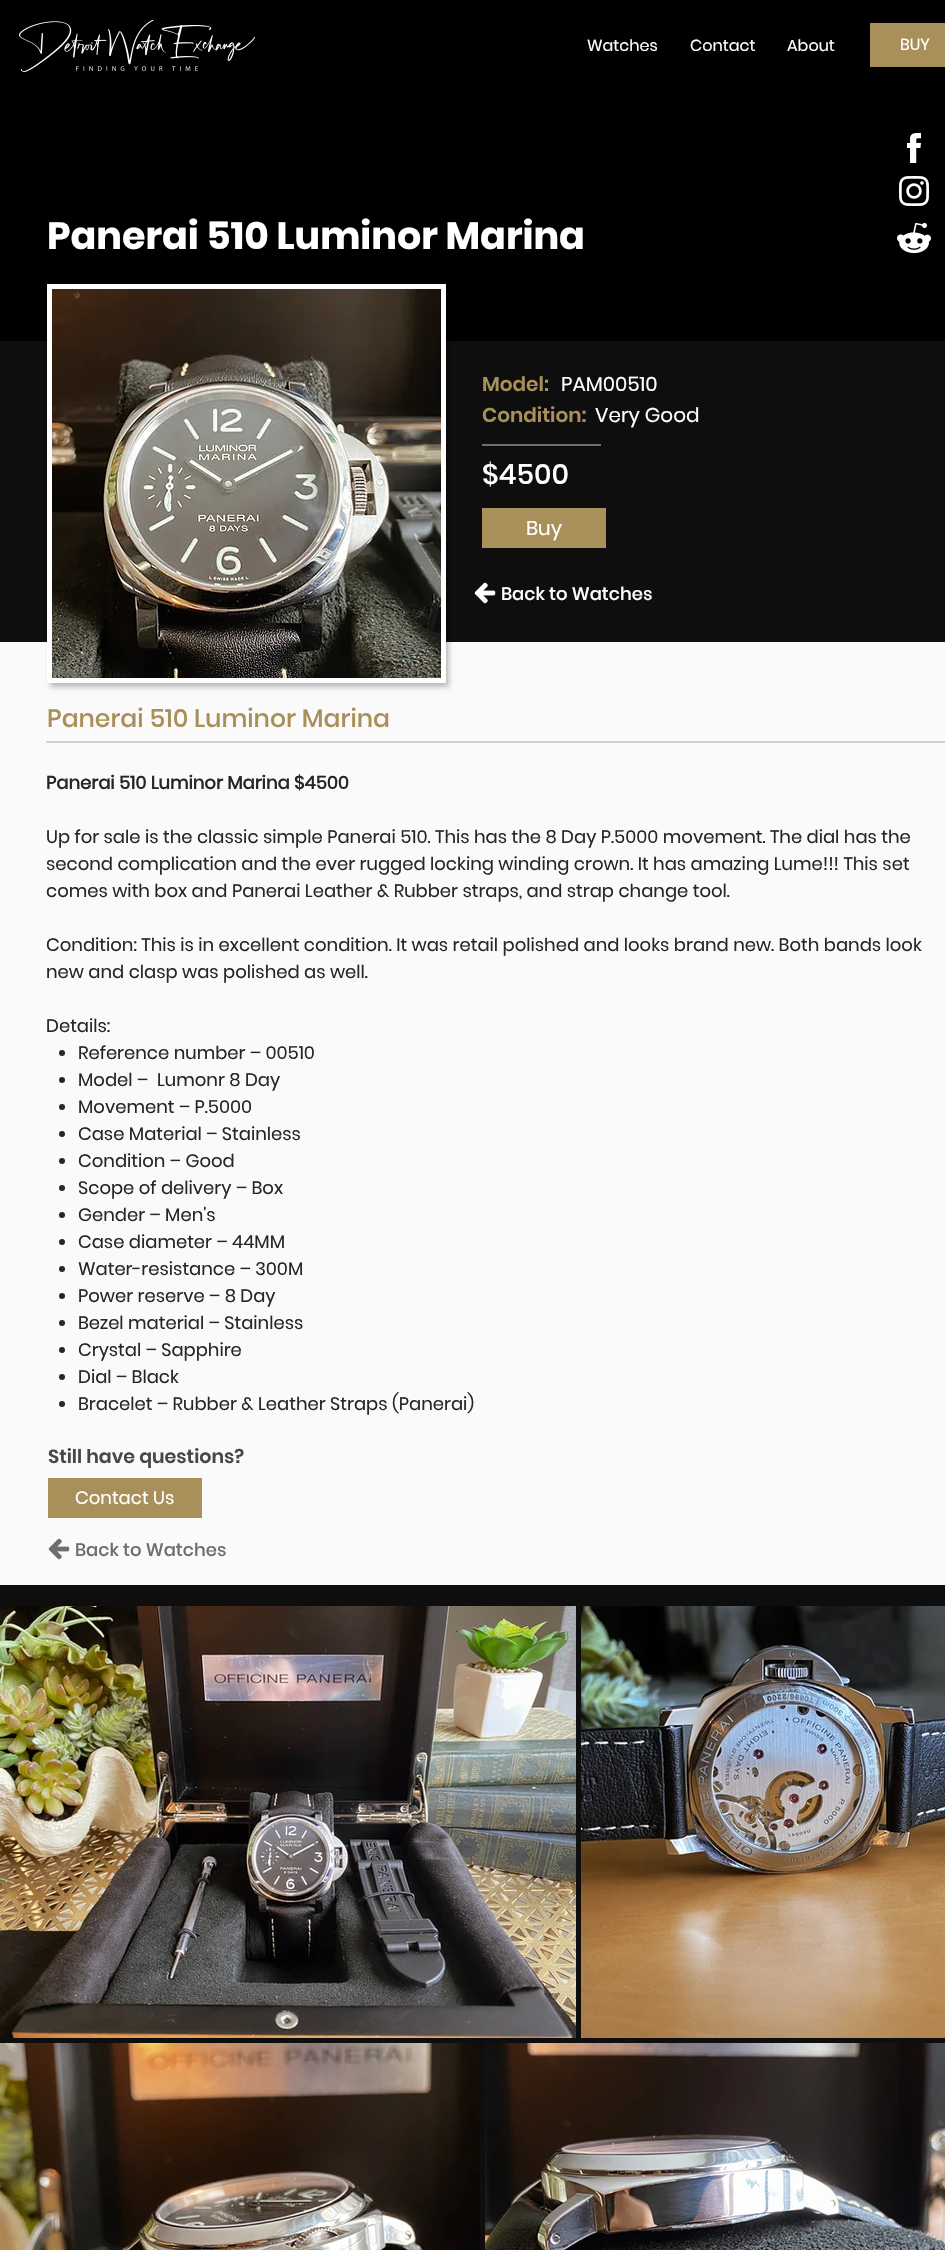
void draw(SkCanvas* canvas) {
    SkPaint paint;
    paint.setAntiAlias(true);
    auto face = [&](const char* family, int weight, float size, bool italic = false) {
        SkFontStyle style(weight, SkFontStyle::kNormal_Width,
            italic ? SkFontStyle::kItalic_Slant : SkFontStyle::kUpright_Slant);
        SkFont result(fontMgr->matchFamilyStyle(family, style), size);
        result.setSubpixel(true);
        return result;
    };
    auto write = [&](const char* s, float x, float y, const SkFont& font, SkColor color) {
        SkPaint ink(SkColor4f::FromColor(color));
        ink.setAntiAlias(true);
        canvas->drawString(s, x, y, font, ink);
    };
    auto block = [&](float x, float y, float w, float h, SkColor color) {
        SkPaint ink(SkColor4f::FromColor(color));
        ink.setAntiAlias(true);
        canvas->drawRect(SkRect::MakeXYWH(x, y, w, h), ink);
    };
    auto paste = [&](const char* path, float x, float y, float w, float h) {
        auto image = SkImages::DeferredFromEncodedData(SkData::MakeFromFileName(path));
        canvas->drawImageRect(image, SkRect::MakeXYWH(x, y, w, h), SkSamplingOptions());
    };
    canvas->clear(SkColorSetRGB(14, 14, 14));
    block(0, 0, 945, 341, SK_ColorBLACK);
    paste("pic1.png", 19, 20, 236, 52);
    auto kFont1 = face("Poppins", 400, 16);
    write("Watches", 587, 51, kFont1, SK_ColorWHITE);
    write("Contact", 690, 51, kFont1, SK_ColorWHITE);
    write("About", 787, 51, kFont1, SK_ColorWHITE);
    block(870, 23, 75, 44, SkColorSetRGB(169, 144, 90));
    write("BUY", 900, 50, kFont1, SK_ColorWHITE);
    paste("pic2.png", 907, 133, 14, 30);
    paste("pic3.png", 899, 176, 30, 30);
    paste("pic4.png", 897, 222, 34, 32);
    auto kFont2 = face("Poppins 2", 700, 38);
    write("Panerai 510 Luminor Marina", 47, 249, kFont2, SK_ColorWHITE);
    block(0, 642, 945, 943, SkColorSetRGB(250, 250, 250));
    paint.setColor(SkColorSetARGB(64, 0, 0, 0));
    paint.setMaskFilter(SkMaskFilter::MakeBlur(kNormal_SkBlurStyle, 2.5f));
    canvas->drawRect(SkRect::MakeXYWH(50, 288, 399, 399), paint);
    paint.setMaskFilter(nullptr);
    block(47, 284, 399, 399, SK_ColorWHITE);
    paste("pic5.png", 52, 289, 389, 389);
    auto kFont3 = face("Poppins", 600, 20);
    write("Model:", 482, 391, kFont3, SkColorSetRGB(169, 144, 90));
    auto kFont4 = face("Poppins", 400, 20);
    write("PAM00510", 561, 391, kFont4, SK_ColorWHITE);
    write("Condition:", 482, 422, kFont3, SkColorSetRGB(169, 144, 90));
    write("Very Good", 595, 422, kFont4, SK_ColorWHITE);
    block(482, 444, 119, 2, SkColorSetRGB(110, 110, 110));
    auto kFont5 = face("Poppins", 500, 28);
    write("$4500", 482, 484, kFont5, SK_ColorWHITE);
    block(482, 508, 124, 40, SkColorSetRGB(169, 144, 90));
    write("Buy", 526, 535, kFont4, SK_ColorWHITE);
    paste("pic6.png", 474, 582, 22, 22);
    auto kFont6 = face("Poppins", 500, 18);
    write("Back to Watches", 501, 600, kFont6, SK_ColorWHITE);
    auto kFont7 = face("Poppins", 500, 25);
    write("Panerai 510 Luminor Marina", 47, 727, kFont7, SkColorSetRGB(169, 144, 90));
    block(46, 741, 899, 2, SkColorSetRGB(208, 208, 208));
    auto kFont8 = face("Poppins", 700, 18);
    write("Panerai 510 Luminor Marina $4500", 46, 789, kFont8, SkColorSetRGB(38, 38, 38));
    auto kFont9 = face("Poppins", 400, 18);
    write("Up for sale is the classic simple Panerai 510. This has the 8 Day P.5000 movement. The dial has the", 46, 843, kFont9, SkColorSetRGB(38, 38, 38));
    write("second complication and the ever rugged locking winding crown. It has amazing Lume!!! This set", 46, 870, kFont9, SkColorSetRGB(38, 38, 38));
    write("comes with box and Panerai Leather & Rubber straps, and strap change tool.", 46, 897, kFont9, SkColorSetRGB(38, 38, 38));
    write("Condition: This is in excellent condition. It was retail polished and looks brand new. Both bands look", 46, 951, kFont9, SkColorSetRGB(38, 38, 38));
    write("new and clasp was polished as well.", 46, 978, kFont9, SkColorSetRGB(38, 38, 38));
    write("Details:", 46, 1032, kFont9, SkColorSetRGB(38, 38, 38));
    paint.setColor(SkColorSetRGB(38, 38, 38));
    canvas->drawCircle(62, 1053, 3, paint);
    write("Reference number – 00510", 78, 1059, kFont9, SkColorSetRGB(38, 38, 38));
    canvas->drawCircle(62, 1080, 3, paint);
    write("Model –  Lumonr 8 Day", 78, 1086, kFont9, SkColorSetRGB(38, 38, 38));
    canvas->drawCircle(62, 1107, 3, paint);
    write("Movement – P.5000", 78, 1113, kFont9, SkColorSetRGB(38, 38, 38));
    canvas->drawCircle(62, 1134, 3, paint);
    write("Case Material – Stainless", 78, 1140, kFont9, SkColorSetRGB(38, 38, 38));
    canvas->drawCircle(62, 1161, 3, paint);
    write("Condition – Good", 78, 1167, kFont9, SkColorSetRGB(38, 38, 38));
    canvas->drawCircle(62, 1188, 3, paint);
    write("Scope of delivery – Box", 78, 1194, kFont9, SkColorSetRGB(38, 38, 38));
    canvas->drawCircle(62, 1215, 3, paint);
    write("Gender – Men's", 78, 1221, kFont9, SkColorSetRGB(38, 38, 38));
    canvas->drawCircle(62, 1242, 3, paint);
    write("Case diameter – 44MM", 78, 1248, kFont9, SkColorSetRGB(38, 38, 38));
    canvas->drawCircle(62, 1269, 3, paint);
    write("Water-resistance – 300M", 78, 1275, kFont9, SkColorSetRGB(38, 38, 38));
    canvas->drawCircle(62, 1296, 3, paint);
    write("Power reserve – 8 Day", 78, 1302, kFont9, SkColorSetRGB(38, 38, 38));
    canvas->drawCircle(62, 1323, 3, paint);
    write("Bezel material – Stainless", 78, 1329, kFont9, SkColorSetRGB(38, 38, 38));
    canvas->drawCircle(62, 1350, 3, paint);
    write("Crystal – Sapphire", 78, 1356, kFont9, SkColorSetRGB(38, 38, 38));
    canvas->drawCircle(62, 1377, 3, paint);
    write("Dial – Black", 78, 1383, kFont9, SkColorSetRGB(38, 38, 38));
    canvas->drawCircle(62, 1404, 3, paint);
    write("Bracelet – Rubber & Leather Straps (Panerai)", 78, 1410, kFont9, SkColorSetRGB(38, 38, 38));
    auto kFont10 = face("Poppins", 600, 19);
    write("Still have questions?", 48, 1463, kFont10, SkColorSetRGB(71, 71, 71));
    block(48, 1478, 154, 40, SkColorSetRGB(169, 144, 90));
    write("Contact Us", 75, 1504, kFont9, SK_ColorWHITE);
    paste("pic7.png", 48, 1538, 22, 22);
    write("Back to Watches", 75, 1556, kFont6, SkColorSetRGB(110, 110, 110));
    paste("pic8.png", 0, 1606, 576, 432);
    paste("pic9.png", 581, 1606, 364, 432);
    paste("pic10.png", 0, 2043, 480, 207);
    paste("pic11.png", 485, 2043, 460, 207);
}
